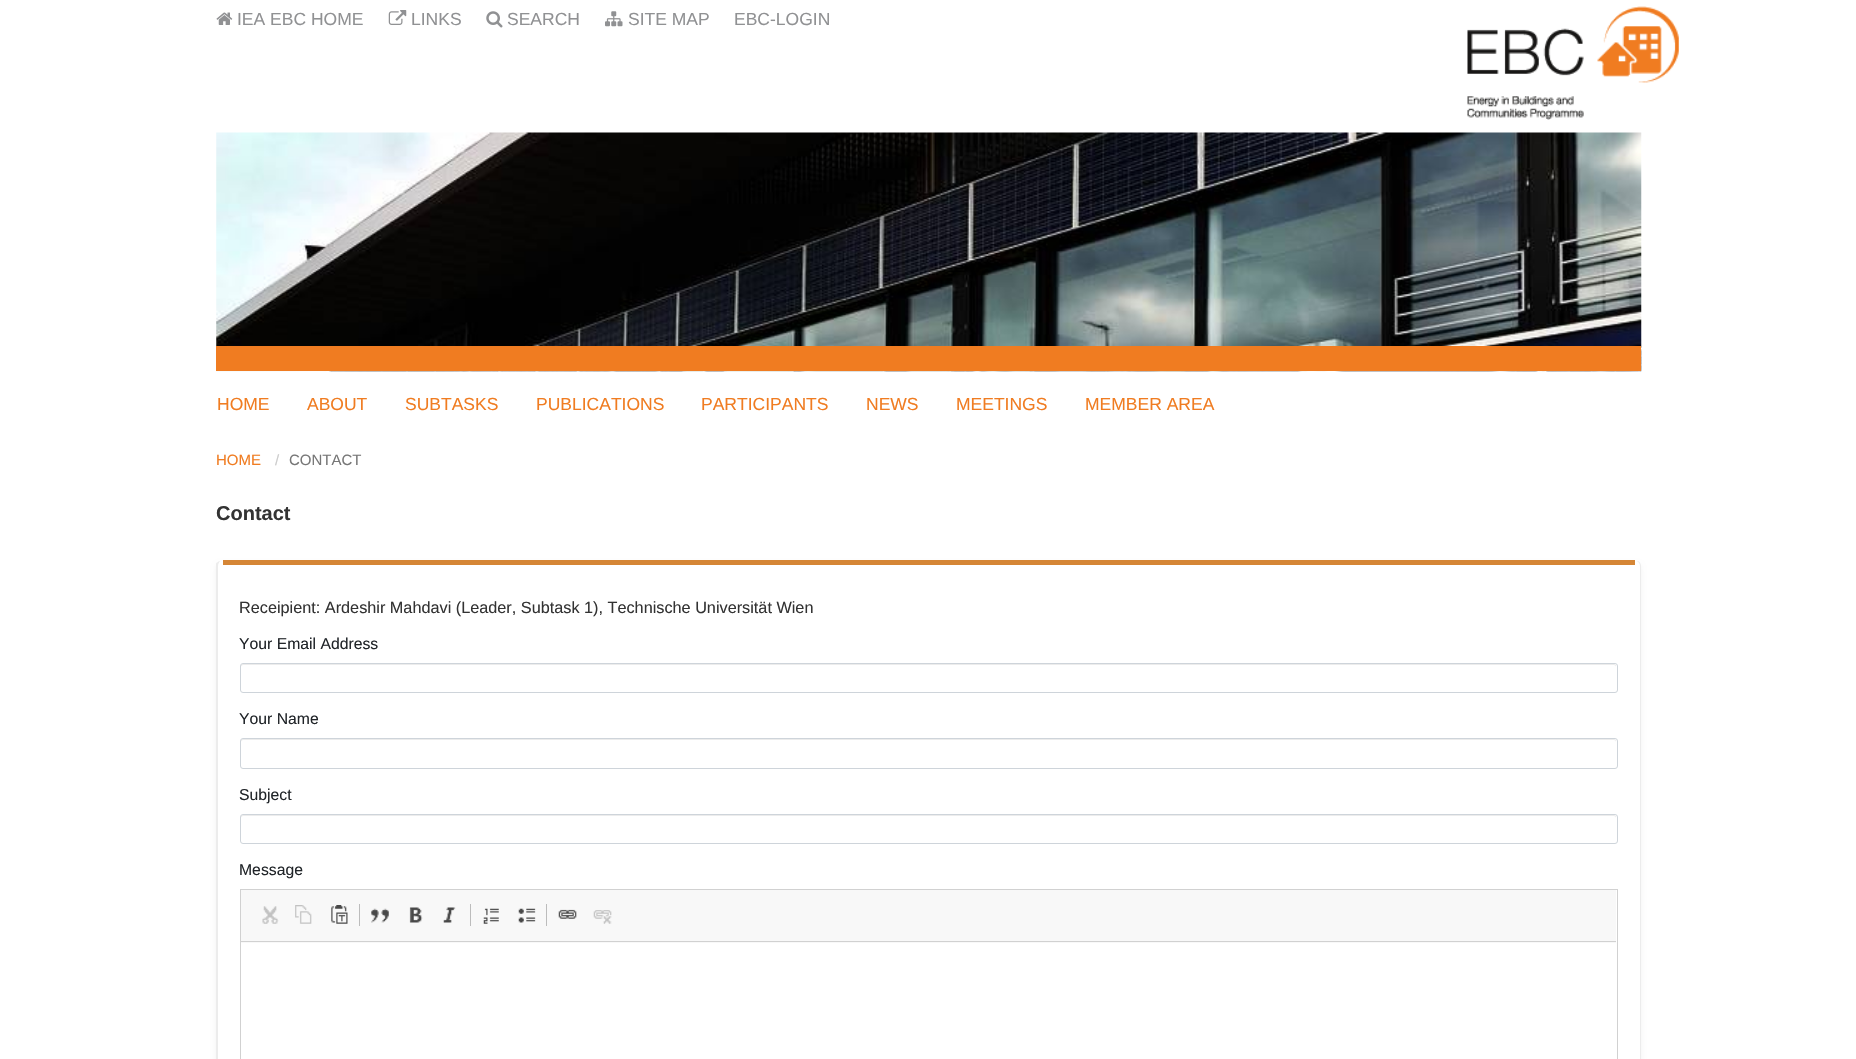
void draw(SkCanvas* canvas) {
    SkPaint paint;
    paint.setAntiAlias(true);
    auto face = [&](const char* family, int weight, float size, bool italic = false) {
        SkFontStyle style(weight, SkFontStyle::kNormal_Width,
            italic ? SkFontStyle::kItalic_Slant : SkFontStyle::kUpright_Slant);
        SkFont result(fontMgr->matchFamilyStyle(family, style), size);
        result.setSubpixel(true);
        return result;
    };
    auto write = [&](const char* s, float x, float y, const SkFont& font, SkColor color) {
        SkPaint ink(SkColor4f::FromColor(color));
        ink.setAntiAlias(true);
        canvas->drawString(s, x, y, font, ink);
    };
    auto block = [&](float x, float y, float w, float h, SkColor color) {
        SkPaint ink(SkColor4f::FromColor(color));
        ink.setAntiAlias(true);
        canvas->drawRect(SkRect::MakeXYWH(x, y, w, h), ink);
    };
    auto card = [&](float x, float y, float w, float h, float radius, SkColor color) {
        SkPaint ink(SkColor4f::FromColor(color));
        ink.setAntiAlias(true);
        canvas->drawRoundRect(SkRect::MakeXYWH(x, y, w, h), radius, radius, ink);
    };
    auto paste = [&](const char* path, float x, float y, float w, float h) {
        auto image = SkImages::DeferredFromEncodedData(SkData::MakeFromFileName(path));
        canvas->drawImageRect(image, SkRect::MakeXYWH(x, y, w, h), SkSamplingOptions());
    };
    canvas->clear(SK_ColorWHITE);
    paste("pic1.png", 216, 12, 17, 13);
    auto kFont1 = face("Liberation Sans", 400, 17.5f);
    write("IEA EBC HOME", 237, 25, kFont1, SkColorSetRGB(144, 145, 147));
    paste("pic2.png", 388, 10, 19, 15);
    write("LINKS", 411, 25, kFont1, SkColorSetRGB(144, 145, 147));
    paste("pic3.png", 486, 11, 17, 17);
    write("SEARCH", 507, 25, kFont1, SkColorSetRGB(144, 145, 147));
    paste("pic4.png", 605, 11, 18, 16);
    write("SITE MAP", 628, 25, kFont1, SkColorSetRGB(144, 145, 147));
    write("EBC-LOGIN", 734, 25, kFont1, SkColorSetRGB(144, 145, 147));
    paste("pic5.png", 1467, 6, 212, 114);
    paste("pic6.png", 216, 132, 1426, 240);
    block(216, 346, 1425, 25, SkColorSetRGB(240, 124, 33));
    write("HOME", 217, 410, kFont1, SkColorSetRGB(240, 124, 33));
    write("ABOUT", 307, 410, kFont1, SkColorSetRGB(240, 124, 33));
    write("SUBTASKS", 405, 410, kFont1, SkColorSetRGB(240, 124, 33));
    write("PUBLICATIONS", 536, 410, kFont1, SkColorSetRGB(240, 124, 33));
    write("PARTICIPANTS", 701, 410, kFont1, SkColorSetRGB(240, 124, 33));
    write("NEWS", 866, 410, kFont1, SkColorSetRGB(240, 124, 33));
    write("MEETINGS", 956, 410, kFont1, SkColorSetRGB(240, 124, 33));
    write("MEMBER AREA", 1085, 410, kFont1, SkColorSetRGB(240, 124, 33));
    auto kFont2 = face("Liberation Sans", 400, 15);
    write("HOME", 216, 465, kFont2, SkColorSetRGB(240, 124, 33));
    write("/", 275, 465, kFont2, SkColorSetRGB(204, 204, 204));
    write("CONTACT", 289, 465, kFont2, SkColorSetRGB(119, 119, 119));
    auto kFont3 = face("Liberation Sans", 700, 20);
    write("Contact", 216, 520, kFont3, SkColorSetRGB(51, 51, 51));
    paint.setColor(SkColorSetARGB(13, 0, 0, 0));
    paint.setMaskFilter(SkMaskFilter::MakeBlur(kNormal_SkBlurStyle, 2.5f));
    canvas->drawRoundRect(SkRect::MakeXYWH(216, 564, 1425, 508), 5, 5, paint);
    paint.setMaskFilter(nullptr);
    card(216, 561, 1425, 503, 5, SK_ColorWHITE);
    paint.setColor(SkColorSetRGB(236, 236, 236));
    canvas->drawPath(SkPathBuilder().moveTo(1639, 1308).cubicTo(1640, 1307, 1640, 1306, 1640, 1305).lineTo(1640, 566).cubicTo(1640, 564, 1639, 562, 1637, 561).lineTo(1638, 561).cubicTo(1640, 562, 1641, 564, 1641, 566).lineTo(1641, 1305).cubicTo(1641, 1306, 1641, 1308, 1640, 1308).close().detach(), paint);
    canvas->drawPath(SkPathBuilder().moveTo(220, 561).cubicTo(219, 562, 218, 564, 218, 566).lineTo(218, 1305).lineTo(219, 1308).lineTo(218, 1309).lineTo(216, 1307).lineTo(216, 564).cubicTo(216, 563, 219, 561, 220, 561).close().detach(), paint);
    block(223, 560, 1412, 5, SkColorSetRGB(213, 134, 54));
    auto kFont4 = face("Liberation Sans", 400, 16.25f);
    write("Receipient: Ardeshir Mahdavi (Leader, Subtask 1), Technische Universität Wien", 239, 613, kFont4, SkColorSetRGB(51, 51, 51));
    auto kFont5 = face("Liberation Sans", 400, 15.75f);
    write("Your Email Address", 239, 649, kFont5, SkColorSetRGB(33, 37, 41));
    canvas->drawPath(SkPathBuilder().moveTo(243, 665).lineTo(1614, 665).cubicTo(1615, 665, 1616, 666, 1616, 667).lineTo(1616, 666).cubicTo(1616, 665, 1615, 664, 1614, 664).lineTo(243, 664).cubicTo(242, 664, 241, 665, 241, 666).lineTo(241, 667).cubicTo(241, 666, 242, 665, 243, 665).close().detach(), paint);
    paint.setStyle(SkPaint::kStroke_Style);
    paint.setStrokeWidth(1);
    paint.setColor(SkColorSetRGB(206, 212, 218));
    canvas->drawRoundRect(SkRect::MakeXYWH(240.5f, 663.5f, 1377, 29), 2.5f, 2.5f, paint);
    write("Your Name", 239, 724, kFont5, SkColorSetRGB(33, 37, 41));
    paint.setStyle(SkPaint::kFill_Style);
    paint.setColor(SkColorSetRGB(236, 236, 236));
    canvas->drawPath(SkPathBuilder().moveTo(243, 740).lineTo(1614, 740).cubicTo(1615, 740, 1616, 741, 1616, 742).lineTo(1616, 741).cubicTo(1616, 740, 1615, 739, 1614, 739).lineTo(243, 739).cubicTo(242, 739, 241, 740, 241, 741).lineTo(241, 742).cubicTo(241, 741, 242, 740, 243, 740).close().detach(), paint);
    paint.setStyle(SkPaint::kStroke_Style);
    paint.setColor(SkColorSetRGB(206, 212, 218));
    canvas->drawRoundRect(SkRect::MakeXYWH(240.5f, 738.5f, 1377, 30), 2.5f, 2.5f, paint);
    write("Subject", 239, 800, kFont5, SkColorSetRGB(33, 37, 41));
    paint.setStyle(SkPaint::kFill_Style);
    paint.setColor(SkColorSetRGB(236, 236, 236));
    canvas->drawPath(SkPathBuilder().moveTo(243, 816).lineTo(1614, 816).cubicTo(1615, 816, 1616, 817, 1616, 818).lineTo(1616, 817).cubicTo(1616, 816, 1615, 815, 1614, 815).lineTo(243, 815).cubicTo(242, 815, 241, 816, 241, 817).lineTo(241, 818).cubicTo(241, 817, 242, 816, 243, 816).close().detach(), paint);
    paint.setStyle(SkPaint::kStroke_Style);
    paint.setColor(SkColorSetRGB(206, 212, 218));
    canvas->drawRoundRect(SkRect::MakeXYWH(240.5f, 814.5f, 1377, 29), 2.5f, 2.5f, paint);
    write("Message", 239, 875, kFont5, SkColorSetRGB(33, 37, 41));
    paint.setColor(SkColorSetRGB(209, 209, 209));
    canvas->drawRect(SkRect::MakeXYWH(240.5f, 889.5f, 1377, 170), paint);
    block(241, 890, 1375, 53, SkColorSetRGB(248, 248, 248));
    block(241, 941, 1375, 1, SkColorSetRGB(209, 209, 209));
    paste("pic7.png", 262, 906, 17, 18);
    paste("pic8.png", 295, 905, 17, 19);
    paste("pic9.png", 331, 905, 17, 19);
    block(359, 904, 1, 22, SkColorSetRGB(188, 188, 188));
    paste("pic10.png", 371, 908, 18, 15);
    paste("pic11.png", 409, 907, 14, 16);
    paste("pic12.png", 443, 907, 13, 16);
    block(470, 904, 1, 22, SkColorSetRGB(188, 188, 188));
    paste("pic13.png", 483, 908, 16, 16);
    paste("pic14.png", 518, 908, 18, 15);
    block(546, 904, 1, 22, SkColorSetRGB(188, 188, 188));
    paste("pic15.png", 558, 909, 19, 10);
    paste("pic16.png", 593, 910, 19, 14);
}
